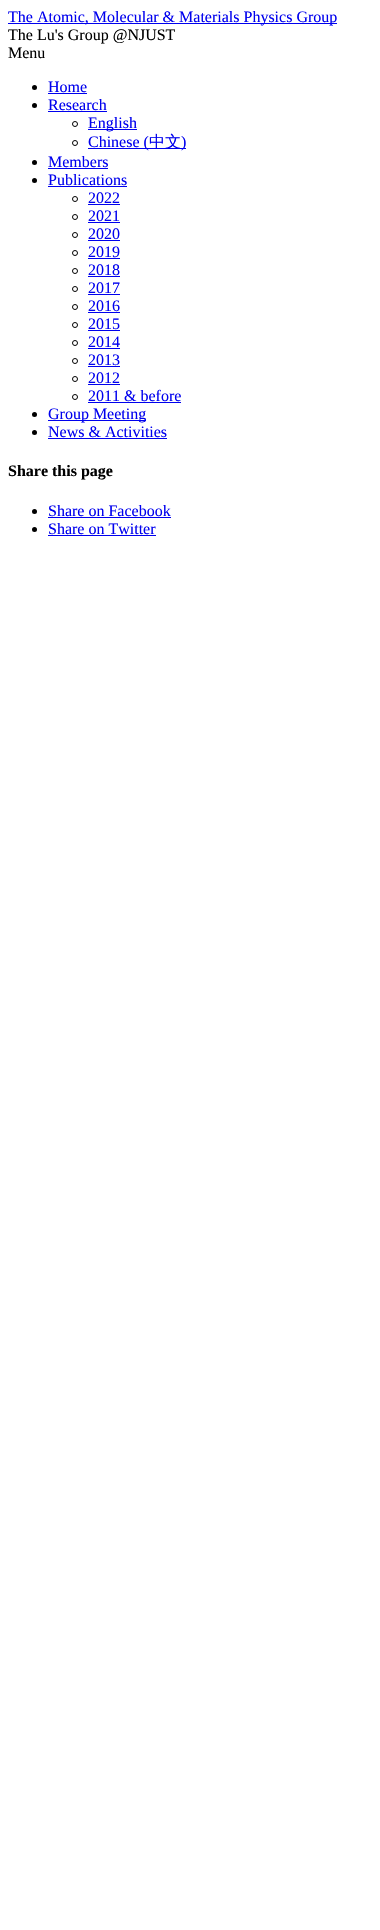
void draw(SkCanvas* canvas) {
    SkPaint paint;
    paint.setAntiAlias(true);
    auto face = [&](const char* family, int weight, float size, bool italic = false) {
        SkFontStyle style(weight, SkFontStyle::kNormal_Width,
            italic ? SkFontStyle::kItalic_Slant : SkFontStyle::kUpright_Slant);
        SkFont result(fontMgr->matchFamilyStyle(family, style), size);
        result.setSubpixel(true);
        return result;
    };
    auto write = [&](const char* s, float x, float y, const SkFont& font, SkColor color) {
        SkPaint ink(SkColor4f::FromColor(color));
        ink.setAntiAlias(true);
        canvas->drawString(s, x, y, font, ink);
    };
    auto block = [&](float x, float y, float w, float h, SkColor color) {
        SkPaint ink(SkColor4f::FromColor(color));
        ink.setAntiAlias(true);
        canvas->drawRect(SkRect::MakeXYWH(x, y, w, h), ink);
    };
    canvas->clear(SK_ColorWHITE);
    block(8, 23, 329, 1, SkColorSetRGB(0, 0, 238));
    auto kFont1 = face("Liberation Serif", 400, 16);
    write("The Atomic, Molecular & Materials Physics Group", 8, 22, kFont1, SkColorSetRGB(0, 0, 238));
    write("The Lu's Group @NJUST", 8, 40, kFont1, SK_ColorBLACK);
    write("Menu", 8, 58, kFont1, SK_ColorBLACK);
    paint.setColor(SK_ColorBLACK);
    canvas->drawCircle(34.5f, 87.5f, 2.5f, paint);
    write("Home", 48, 92, kFont1, SkColorSetRGB(0, 0, 238));
    block(48, 93, 39, 1, SkColorSetRGB(0, 0, 238));
    canvas->drawCircle(34.5f, 105.5f, 2.5f, paint);
    write("Research", 48, 110, kFont1, SkColorSetRGB(0, 0, 238));
    block(48, 111, 59, 1, SkColorSetRGB(0, 0, 238));
    paint.setStyle(SkPaint::kStroke_Style);
    paint.setStrokeWidth(1);
    canvas->drawCircle(75, 124, 2.5f, paint);
    block(88, 129, 49, 1, SkColorSetRGB(0, 0, 238));
    write("English", 88, 128, kFont1, SkColorSetRGB(0, 0, 238));
    canvas->drawCircle(75, 143, 2.5f, paint);
    block(88, 148, 98, 1, SkColorSetRGB(0, 0, 238));
    write("Chinese (", 88, 147, kFont1, SkColorSetRGB(0, 0, 238));
    auto kFont2 = face("WenQuanYi Zen Hei", 500, 16);
    write("中文", 149, 147, kFont2, SkColorSetRGB(0, 0, 238));
    write(")", 181, 147, kFont1, SkColorSetRGB(0, 0, 238));
    paint.setStyle(SkPaint::kFill_Style);
    canvas->drawCircle(34.5f, 162.5f, 2.5f, paint);
    write("Members", 48, 167, kFont1, SkColorSetRGB(0, 0, 238));
    block(48, 168, 60, 1, SkColorSetRGB(0, 0, 238));
    canvas->drawCircle(34.5f, 180.5f, 2.5f, paint);
    write("Publications", 48, 185, kFont1, SkColorSetRGB(0, 0, 238));
    block(48, 186, 79, 1, SkColorSetRGB(0, 0, 238));
    paint.setStyle(SkPaint::kStroke_Style);
    canvas->drawCircle(75, 199, 2.5f, paint);
    write("2022", 88, 203, kFont1, SkColorSetRGB(0, 0, 238));
    block(88, 204, 32, 1, SkColorSetRGB(0, 0, 238));
    canvas->drawCircle(75, 217, 2.5f, paint);
    write("2021", 88, 221, kFont1, SkColorSetRGB(0, 0, 238));
    block(88, 222, 32, 1, SkColorSetRGB(0, 0, 238));
    canvas->drawCircle(75, 235, 2.5f, paint);
    write("2020", 88, 239, kFont1, SkColorSetRGB(0, 0, 238));
    block(88, 240, 32, 1, SkColorSetRGB(0, 0, 238));
    canvas->drawCircle(75, 253, 2.5f, paint);
    write("2019", 88, 257, kFont1, SkColorSetRGB(0, 0, 238));
    block(88, 258, 32, 1, SkColorSetRGB(0, 0, 238));
    canvas->drawCircle(75, 271, 2.5f, paint);
    write("2018", 88, 275, kFont1, SkColorSetRGB(0, 0, 238));
    block(88, 276, 32, 1, SkColorSetRGB(0, 0, 238));
    canvas->drawCircle(75, 289, 2.5f, paint);
    write("2017", 88, 293, kFont1, SkColorSetRGB(0, 0, 238));
    block(88, 294, 32, 1, SkColorSetRGB(0, 0, 238));
    canvas->drawCircle(75, 307, 2.5f, paint);
    write("2016", 88, 311, kFont1, SkColorSetRGB(0, 0, 238));
    block(88, 312, 32, 1, SkColorSetRGB(0, 0, 238));
    canvas->drawCircle(75, 325, 2.5f, paint);
    write("2015", 88, 329, kFont1, SkColorSetRGB(0, 0, 238));
    block(88, 330, 32, 1, SkColorSetRGB(0, 0, 238));
    canvas->drawCircle(75, 343, 2.5f, paint);
    write("2014", 88, 347, kFont1, SkColorSetRGB(0, 0, 238));
    block(88, 348, 32, 1, SkColorSetRGB(0, 0, 238));
    canvas->drawCircle(75, 361, 2.5f, paint);
    write("2013", 88, 365, kFont1, SkColorSetRGB(0, 0, 238));
    block(88, 366, 32, 1, SkColorSetRGB(0, 0, 238));
    canvas->drawCircle(75, 379, 2.5f, paint);
    write("2012", 88, 383, kFont1, SkColorSetRGB(0, 0, 238));
    block(88, 384, 32, 1, SkColorSetRGB(0, 0, 238));
    canvas->drawCircle(75, 397, 2.5f, paint);
    write("2011 & before", 88, 401, kFont1, SkColorSetRGB(0, 0, 238));
    block(88, 402, 93, 1, SkColorSetRGB(0, 0, 238));
    paint.setStyle(SkPaint::kFill_Style);
    canvas->drawCircle(34.5f, 414.5f, 2.5f, paint);
    block(48, 420, 98, 1, SkColorSetRGB(0, 0, 238));
    write("Group Meeting", 48, 419, kFont1, SkColorSetRGB(0, 0, 238));
    canvas->drawCircle(34.5f, 432.5f, 2.5f, paint);
    write("News & Activities", 48, 437, kFont1, SkColorSetRGB(0, 0, 238));
    block(48, 438, 119, 1, SkColorSetRGB(0, 0, 238));
    auto kFont3 = face("Liberation Serif", 700, 16);
    write("Share this page", 8, 476, kFont3, SK_ColorBLACK);
    canvas->drawCircle(34.5f, 511.5f, 2.5f, paint);
    write("Share on Facebook", 48, 516, kFont1, SkColorSetRGB(0, 0, 238));
    block(48, 517, 123, 1, SkColorSetRGB(0, 0, 238));
    canvas->drawCircle(34.5f, 529.5f, 2.5f, paint);
    write("Share on Twitter", 48, 534, kFont1, SkColorSetRGB(0, 0, 238));
    block(48, 535, 108, 1, SkColorSetRGB(0, 0, 238));
}
